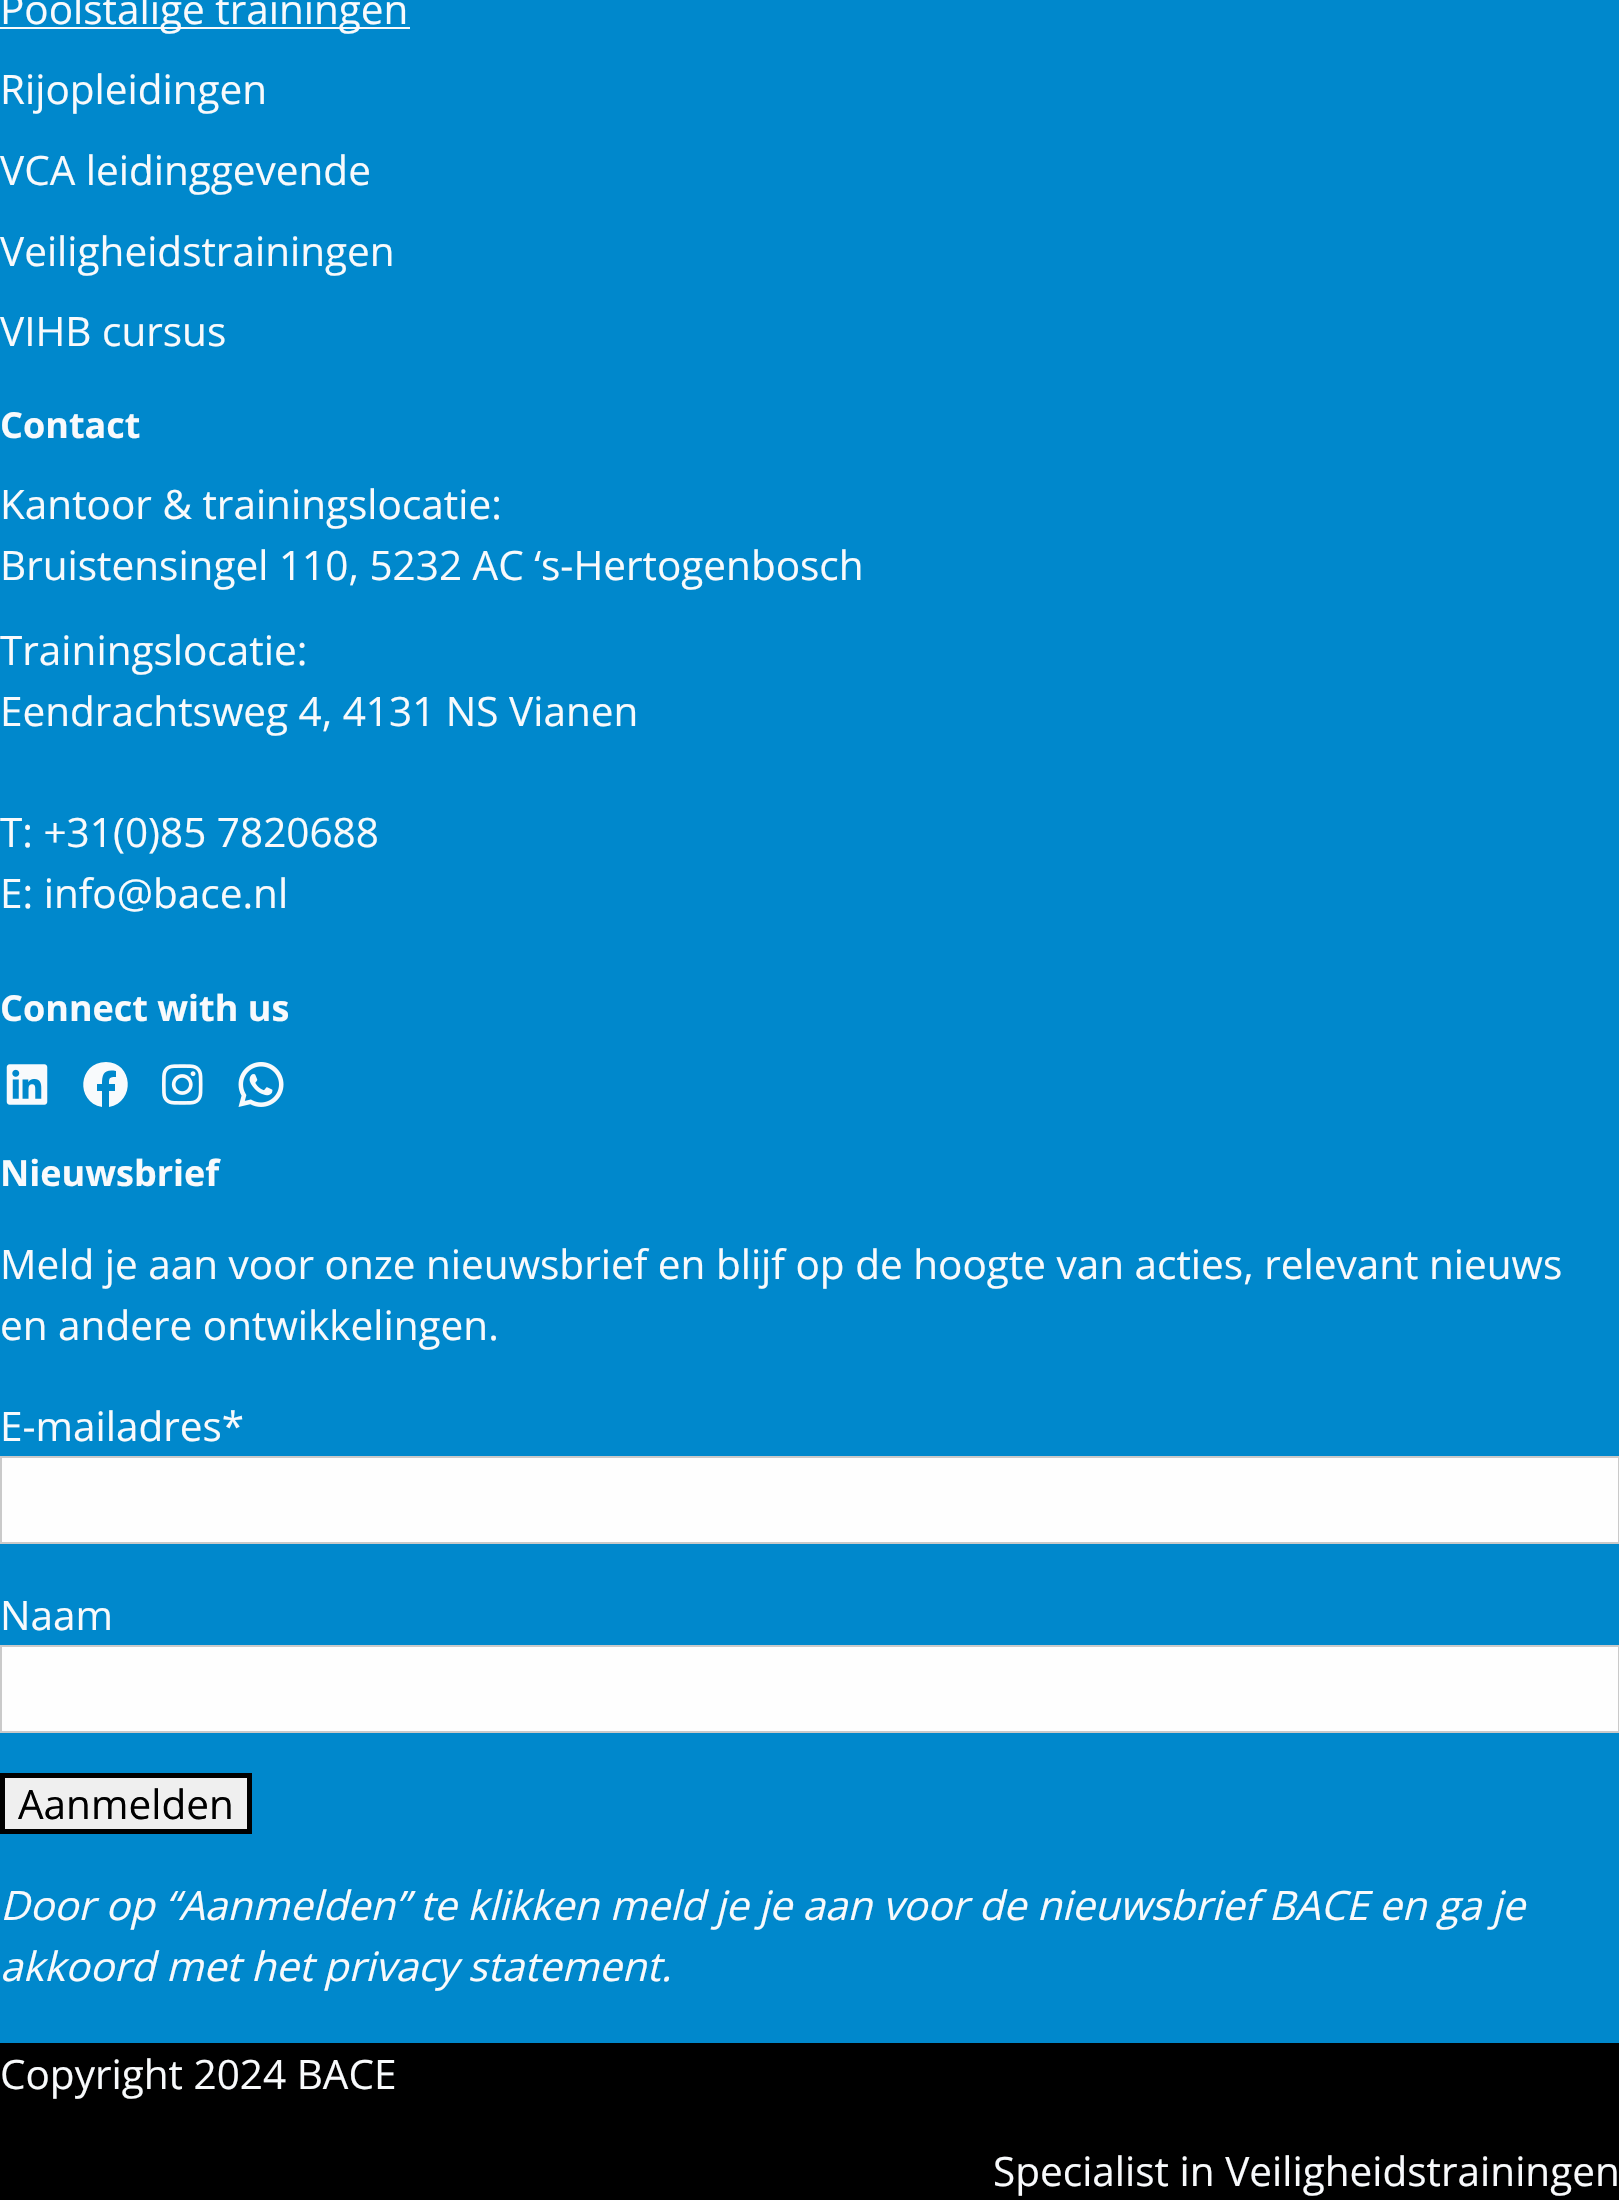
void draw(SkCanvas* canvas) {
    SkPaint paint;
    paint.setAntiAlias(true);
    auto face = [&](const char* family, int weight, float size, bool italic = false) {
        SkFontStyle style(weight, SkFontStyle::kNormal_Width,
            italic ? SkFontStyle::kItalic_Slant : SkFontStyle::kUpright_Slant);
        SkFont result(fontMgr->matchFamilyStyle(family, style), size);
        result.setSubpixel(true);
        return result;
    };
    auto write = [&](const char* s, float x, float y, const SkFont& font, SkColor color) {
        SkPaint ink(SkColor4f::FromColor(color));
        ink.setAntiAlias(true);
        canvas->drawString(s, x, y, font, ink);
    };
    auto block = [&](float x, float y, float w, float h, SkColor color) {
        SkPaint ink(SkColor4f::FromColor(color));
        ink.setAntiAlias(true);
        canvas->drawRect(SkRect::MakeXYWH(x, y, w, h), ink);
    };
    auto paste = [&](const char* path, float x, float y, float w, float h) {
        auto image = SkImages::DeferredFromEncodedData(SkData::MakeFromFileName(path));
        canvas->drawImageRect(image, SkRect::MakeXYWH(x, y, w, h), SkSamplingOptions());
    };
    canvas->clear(SkColorSetRGB(0, 136, 204));
    block(0, 27, 410, 2, SkColorSetRGB(248, 250, 252));
    auto kFont1 = face("Open Sans", 400, 40.5f);
    write("Poolstalige trainingen", 0, 24, kFont1, SkColorSetRGB(248, 250, 252));
    write("Rijopleidingen", 0, 104, kFont1, SkColorSetRGB(248, 250, 252));
    write("VCA leidinggevende", 0, 185, kFont1, SkColorSetRGB(248, 250, 252));
    write("Veiligheidstrainingen", 0, 266, kFont1, SkColorSetRGB(248, 250, 252));
    write("VIHB cursus", 0, 346, kFont1, SkColorSetRGB(248, 250, 252));
    auto kFont2 = face("Open Sans", 700, 36);
    write("Contact", 0, 438, kFont2, SkColorSetRGB(248, 250, 252));
    write("Kantoor & trainingslocatie:", 0, 519, kFont1, SkColorSetRGB(248, 250, 252));
    write("Bruistensingel 110, 5232 AC ‘s-Hertogenbosch", 0, 580, kFont1, SkColorSetRGB(248, 250, 252));
    write("Trainingslocatie:", 0, 665, kFont1, SkColorSetRGB(248, 250, 252));
    write("Eendrachtsweg 4, 4131 NS Vianen", 0, 726, kFont1, SkColorSetRGB(248, 250, 252));
    write("T: +31(0)85 7820688", 0, 847, kFont1, SkColorSetRGB(248, 250, 252));
    write("E: info@bace.nl", 0, 908, kFont1, SkColorSetRGB(248, 250, 252));
    write("Connect with us", 0, 1021, kFont2, SkColorSetRGB(248, 250, 252));
    paste("pic1.png", 6, 1064, 42, 41);
    paint.setColor(SkColorSetRGB(248, 250, 252));
    canvas->drawPath(SkPathBuilder().moveTo(106, 1062).cubicTo(78, 1062, 75, 1102, 102, 1107).lineTo(102, 1091).lineTo(97, 1091).lineTo(97, 1084).lineTo(102, 1084).cubicTo(102, 1074, 104, 1069, 116, 1071).lineTo(116, 1077).cubicTo(109, 1077, 109, 1078, 109, 1084).lineTo(115, 1084).lineTo(115, 1091).lineTo(109, 1091).lineTo(109, 1107).cubicTo(136, 1102, 133, 1062, 106, 1062).close().detach(), paint);
    paste("pic2.png", 162, 1064, 41, 41);
    paste("pic3.png", 238, 1062, 46, 45);
    write("Nieuwsbrief", 0, 1186, kFont2, SkColorSetRGB(248, 250, 252));
    write("Meld je aan voor onze nieuwsbrief en blijf op de hoogte van acties, relevant nieuws", 0, 1279, kFont1, SkColorSetRGB(248, 250, 252));
    write("en andere ontwikkelingen.", 0, 1340, kFont1, SkColorSetRGB(248, 250, 252));
    write("E-mailadres*", 0, 1441, kFont1, SkColorSetRGB(248, 250, 252));
    paint.setColor(SkColorSetRGB(254, 254, 254));
    canvas->drawRect(SkRect::MakeXYWH(1, 1457, 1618, 86), paint);
    paint.setStyle(SkPaint::kStroke_Style);
    paint.setStrokeWidth(2);
    paint.setColor(SkColorSetRGB(202, 202, 202));
    canvas->drawRect(SkRect::MakeXYWH(1, 1457, 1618, 86), paint);
    write("Naam", 0, 1630, kFont1, SkColorSetRGB(248, 250, 252));
    paint.setStyle(SkPaint::kFill_Style);
    paint.setColor(SkColorSetRGB(254, 254, 254));
    canvas->drawRect(SkRect::MakeXYWH(1, 1646, 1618, 86), paint);
    paint.setStyle(SkPaint::kStroke_Style);
    paint.setColor(SkColorSetRGB(202, 202, 202));
    canvas->drawRect(SkRect::MakeXYWH(1, 1646, 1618, 86), paint);
    paint.setStyle(SkPaint::kFill_Style);
    paint.setColor(SkColorSetRGB(239, 239, 239));
    canvas->drawRect(SkRect::MakeXYWH(2.5f, 1775.5f, 247, 56), paint);
    paint.setStyle(SkPaint::kStroke_Style);
    paint.setStrokeWidth(5);
    paint.setColor(SK_ColorBLACK);
    canvas->drawRect(SkRect::MakeXYWH(2.5f, 1775.5f, 247, 56), paint);
    write("Aanmelden", 18, 1819, kFont1, SK_ColorBLACK);
    auto kFont3 = face("Open Sans", 400, 40.5f, true);
    write("Door op “Aanmelden” te klikken meld je je aan voor de nieuwsbrief BACE en ga je", 0, 1920, kFont3, SkColorSetRGB(248, 250, 252));
    write("akkoord met het privacy statement.", 0, 1981, kFont3, SkColorSetRGB(248, 250, 252));
    block(0, 2043, 1619, 157, SK_ColorBLACK);
    write("Copyright 2024 BACE", 0, 2089, kFont1, SkColorSetRGB(248, 250, 252));
    write("Specialist in Veiligheidstrainingen", 993, 2186, kFont1, SkColorSetRGB(248, 250, 252));
}
